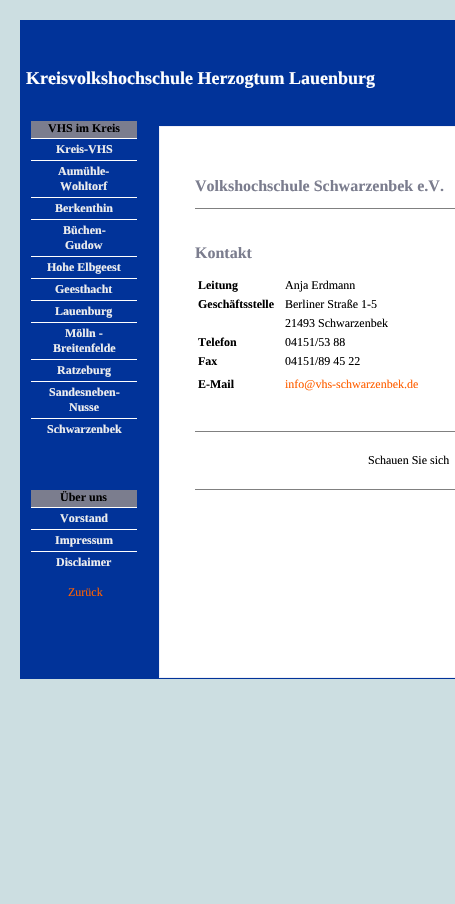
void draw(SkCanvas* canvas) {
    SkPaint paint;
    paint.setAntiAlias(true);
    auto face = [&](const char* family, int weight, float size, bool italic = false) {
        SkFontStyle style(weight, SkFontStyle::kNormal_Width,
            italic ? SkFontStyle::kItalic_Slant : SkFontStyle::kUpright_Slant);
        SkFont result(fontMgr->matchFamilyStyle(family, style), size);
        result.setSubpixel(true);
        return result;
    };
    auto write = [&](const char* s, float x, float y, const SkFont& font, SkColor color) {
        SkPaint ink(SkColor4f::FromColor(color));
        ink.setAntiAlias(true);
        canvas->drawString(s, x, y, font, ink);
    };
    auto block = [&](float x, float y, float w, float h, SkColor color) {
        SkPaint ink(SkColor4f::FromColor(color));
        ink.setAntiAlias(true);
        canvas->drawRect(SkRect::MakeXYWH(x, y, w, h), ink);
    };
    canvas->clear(SkColorSetRGB(204, 222, 225));
    block(20, 20, 435, 659, SkColorSetRGB(1, 51, 153));
    auto kFont1 = face("Liberation Serif", 700, 18);
    write("Kreisvolkshochschule Herzogtum Lauenburg", 26, 84, kFont1, SK_ColorWHITE);
    block(31, 121, 106, 17, SkColorSetRGB(123, 125, 142));
    auto kFont2 = face("Liberation Serif", 700, 12);
    write("VHS im Kreis", 48, 132, kFont2, SK_ColorBLACK);
    block(31, 138, 106, 1, SK_ColorWHITE);
    write("Kreis-VHS", 56, 153, kFont2, SkColorSetRGB(238, 238, 238));
    block(31, 160, 106, 1, SK_ColorWHITE);
    write("Aumühle-", 58, 175, kFont2, SkColorSetRGB(238, 238, 238));
    write("Wohltorf", 60, 190, kFont2, SkColorSetRGB(238, 238, 238));
    block(31, 197, 106, 1, SK_ColorWHITE);
    write("Berkenthin", 55, 212, kFont2, SkColorSetRGB(238, 238, 238));
    block(31, 219, 106, 1, SK_ColorWHITE);
    write("Büchen-", 63, 234, kFont2, SkColorSetRGB(238, 238, 238));
    write("Gudow", 65, 249, kFont2, SkColorSetRGB(238, 238, 238));
    block(31, 256, 106, 1, SK_ColorWHITE);
    write("Hohe Elbgeest", 47, 271, kFont2, SkColorSetRGB(238, 238, 238));
    block(31, 278, 106, 1, SK_ColorWHITE);
    write("Geesthacht", 55, 293, kFont2, SkColorSetRGB(238, 238, 238));
    block(31, 300, 106, 1, SK_ColorWHITE);
    write("Lauenburg", 55, 315, kFont2, SkColorSetRGB(238, 238, 238));
    block(31, 322, 106, 1, SK_ColorWHITE);
    write("Mölln -", 65, 337, kFont2, SkColorSetRGB(238, 238, 238));
    write("Breitenfelde", 53, 352, kFont2, SkColorSetRGB(238, 238, 238));
    block(31, 359, 106, 1, SK_ColorWHITE);
    write("Ratzeburg", 57, 374, kFont2, SkColorSetRGB(238, 238, 238));
    block(31, 381, 106, 1, SK_ColorWHITE);
    write("Sandesneben-", 49, 396, kFont2, SkColorSetRGB(238, 238, 238));
    write("Nusse", 69, 411, kFont2, SkColorSetRGB(238, 238, 238));
    block(31, 418, 106, 1, SK_ColorWHITE);
    write("Schwarzenbek", 47, 433, kFont2, SkColorSetRGB(238, 238, 238));
    block(31, 490, 106, 17, SkColorSetRGB(123, 125, 142));
    write("Über uns", 60, 501, kFont2, SK_ColorBLACK);
    block(31, 507, 106, 1, SK_ColorWHITE);
    write("Vorstand", 60, 522, kFont2, SkColorSetRGB(238, 238, 238));
    block(31, 529, 106, 1, SK_ColorWHITE);
    write("Impressum", 55, 544, kFont2, SkColorSetRGB(238, 238, 238));
    block(31, 551, 106, 1, SK_ColorWHITE);
    write("Disclaimer", 56, 566, kFont2, SkColorSetRGB(238, 238, 238));
    auto kFont3 = face("Liberation Serif", 400, 12);
    write("Zurück", 68, 596, kFont3, SkColorSetRGB(255, 95, 0));
    paint.setColor(SK_ColorWHITE);
    canvas->drawRect(SkRect::MakeXYWH(159.5f, 126.5f, 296, 551), paint);
    paint.setStyle(SkPaint::kStroke_Style);
    paint.setStrokeWidth(1);
    paint.setColor(SkColorSetRGB(239, 239, 247));
    canvas->drawRect(SkRect::MakeXYWH(159.5f, 126.5f, 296, 551), paint);
    auto kFont4 = face("Liberation Serif", 700, 16);
    write("Volkshochschule Schwarzenbek e.V.", 195, 191, kFont4, SkColorSetRGB(123, 125, 142));
    block(195, 208, 260, 1, SkColorSetRGB(128, 128, 128));
    write("Kontakt", 195, 258, kFont4, SkColorSetRGB(123, 125, 142));
    write("Leitung", 198, 289, kFont2, SK_ColorBLACK);
    write("Anja Erdmann", 285, 289, kFont3, SK_ColorBLACK);
    write("Geschäftsstelle", 198, 308, kFont2, SK_ColorBLACK);
    write("Berliner Straße 1-5", 285, 308, kFont3, SK_ColorBLACK);
    write("21493 Schwarzenbek", 285, 327, kFont3, SK_ColorBLACK);
    write("Telefon", 198, 346, kFont2, SK_ColorBLACK);
    write("04151/53 88", 285, 346, kFont3, SK_ColorBLACK);
    write("Fax", 198, 365, kFont2, SK_ColorBLACK);
    write("04151/89 45 22", 285, 365, kFont3, SK_ColorBLACK);
    write("E-Mail", 198, 388, kFont2, SK_ColorBLACK);
    write("info@vhs-schwarzenbek.de", 285, 388, kFont3, SkColorSetRGB(255, 95, 0));
    block(195, 431, 260, 1, SkColorSetRGB(128, 128, 128));
    write("Schauen Sie sich", 368, 464, kFont3, SK_ColorBLACK);
    block(195, 489, 260, 1, SkColorSetRGB(128, 128, 128));
}
